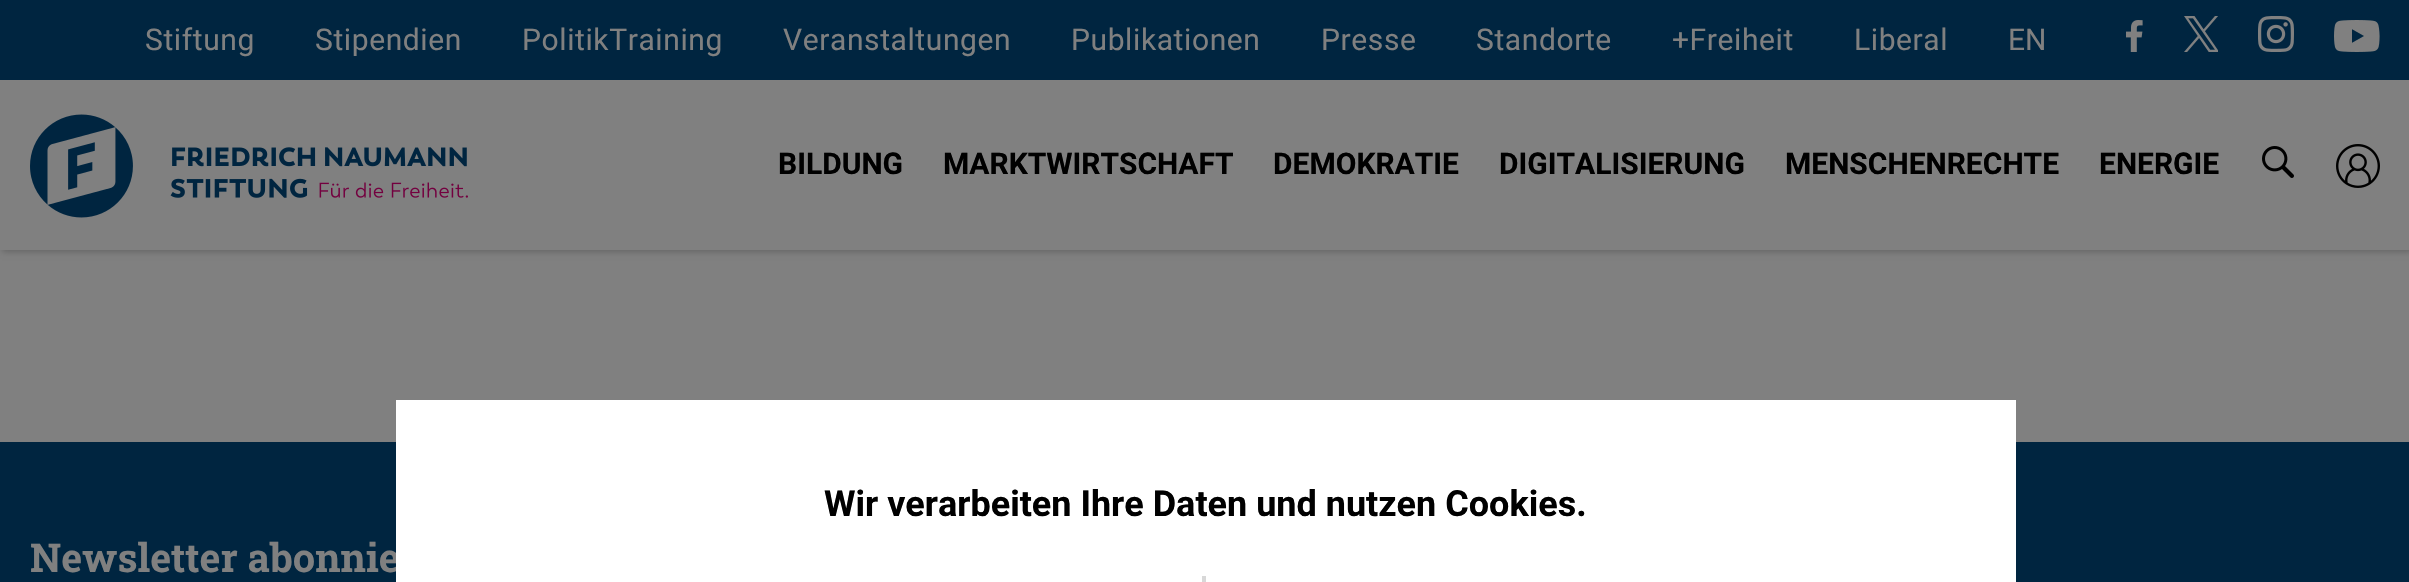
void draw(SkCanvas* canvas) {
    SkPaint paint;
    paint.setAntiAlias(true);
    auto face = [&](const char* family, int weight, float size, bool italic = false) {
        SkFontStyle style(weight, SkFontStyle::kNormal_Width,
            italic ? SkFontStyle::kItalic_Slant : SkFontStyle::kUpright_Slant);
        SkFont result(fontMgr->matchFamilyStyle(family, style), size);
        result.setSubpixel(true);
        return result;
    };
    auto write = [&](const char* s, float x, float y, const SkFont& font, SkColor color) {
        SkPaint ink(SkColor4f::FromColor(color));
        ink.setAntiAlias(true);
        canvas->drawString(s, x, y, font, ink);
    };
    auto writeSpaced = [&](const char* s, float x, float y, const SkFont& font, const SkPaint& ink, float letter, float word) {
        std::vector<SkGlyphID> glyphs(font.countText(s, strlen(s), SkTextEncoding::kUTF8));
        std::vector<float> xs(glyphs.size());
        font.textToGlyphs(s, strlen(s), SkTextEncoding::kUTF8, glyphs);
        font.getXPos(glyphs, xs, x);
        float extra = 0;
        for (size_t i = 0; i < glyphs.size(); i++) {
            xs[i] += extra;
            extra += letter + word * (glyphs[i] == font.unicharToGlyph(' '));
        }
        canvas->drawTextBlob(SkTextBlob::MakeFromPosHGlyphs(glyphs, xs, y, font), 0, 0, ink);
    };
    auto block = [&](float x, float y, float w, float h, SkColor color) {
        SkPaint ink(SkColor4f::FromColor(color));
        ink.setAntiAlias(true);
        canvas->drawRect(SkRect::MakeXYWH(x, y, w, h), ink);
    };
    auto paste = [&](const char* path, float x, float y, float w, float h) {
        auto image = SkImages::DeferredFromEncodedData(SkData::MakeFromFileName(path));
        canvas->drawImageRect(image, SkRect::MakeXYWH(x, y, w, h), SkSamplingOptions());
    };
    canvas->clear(SkColorSetRGB(128, 128, 128));
    paint.setColor(SkColorSetARGB(51, 0, 0, 0));
    paint.setMaskFilter(SkMaskFilter::MakeBlur(kNormal_SkBlurStyle, 3));
    canvas->drawRect(SkRect::MakeXYWH(2, 2, 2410, 250), paint);
    paint.setMaskFilter(nullptr);
    block(0, 80, 2409, 170, SkColorSetRGB(128, 128, 128));
    block(0, 0, 2409, 80, SkColorSetRGB(0, 37, 64));
    auto kFont1 = face("Roboto", 400, 30);
    paint.setColor(SkColorSetRGB(128, 128, 128));
    writeSpaced("Stiftung", 145, 50, kFont1, paint, 0.6f, 0);
    writeSpaced("Stipendien", 315, 50, kFont1, paint, 0.6f, 0);
    writeSpaced("PolitikTraining", 522, 50, kFont1, paint, 0.6f, 0);
    writeSpaced("Veranstaltungen", 783, 50, kFont1, paint, 0.6f, 0);
    writeSpaced("Publikationen", 1071, 50, kFont1, paint, 0.6f, 0);
    writeSpaced("Presse", 1321, 50, kFont1, paint, 0.6f, 0);
    writeSpaced("Standorte", 1476, 50, kFont1, paint, 0.6f, 0);
    writeSpaced("+Freiheit", 1672, 50, kFont1, paint, 0.6f, 0);
    writeSpaced("Liberal", 1854, 50, kFont1, paint, 0.6f, 0);
    write("EN", 2008, 50, kFont1, SkColorSetRGB(128, 128, 128));
    paste("pic1.png", 2126, 20, 17, 32);
    paste("pic2.png", 2184, 16, 34, 36);
    paste("pic3.png", 2258, 16, 36, 36);
    paste("pic4.png", 2334, 20, 46, 32);
    paste("pic5.png", 30, 114, 438, 104);
    auto kFont2 = face("Roboto", 700, 30);
    write("BILDUNG", 778, 174, kFont2, SK_ColorBLACK);
    write("MARKTWIRTSCHAFT", 943, 174, kFont2, SK_ColorBLACK);
    write("DEMOKRATIE", 1273, 174, kFont2, SK_ColorBLACK);
    write("DIGITALISIERUNG", 1499, 174, kFont2, SK_ColorBLACK);
    write("MENSCHENRECHTE", 1785, 174, kFont2, SK_ColorBLACK);
    write("ENERGIE", 2099, 174, kFont2, SK_ColorBLACK);
    paste("pic6.png", 2262, 146, 32, 32);
    paste("pic7.png", 2336, 144, 44, 44);
    block(0, 442, 2409, 140, SkColorSetRGB(0, 37, 64));
    auto kFont3 = face("Roboto Slab", 700, 39.75f);
    write("Newsletter abonnie", 30, 572, kFont3, SkColorSetRGB(128, 128, 128));
    block(396, 400, 1620, 182, SK_ColorWHITE);
    auto kFont4 = face("Roboto", 700, 36);
    write("Wir verarbeiten Ihre Daten und nutzen Cookies.", 824, 516, kFont4, SK_ColorBLACK);
    block(1202, 576, 4, 6, SkColorSetRGB(216, 216, 216));
}
